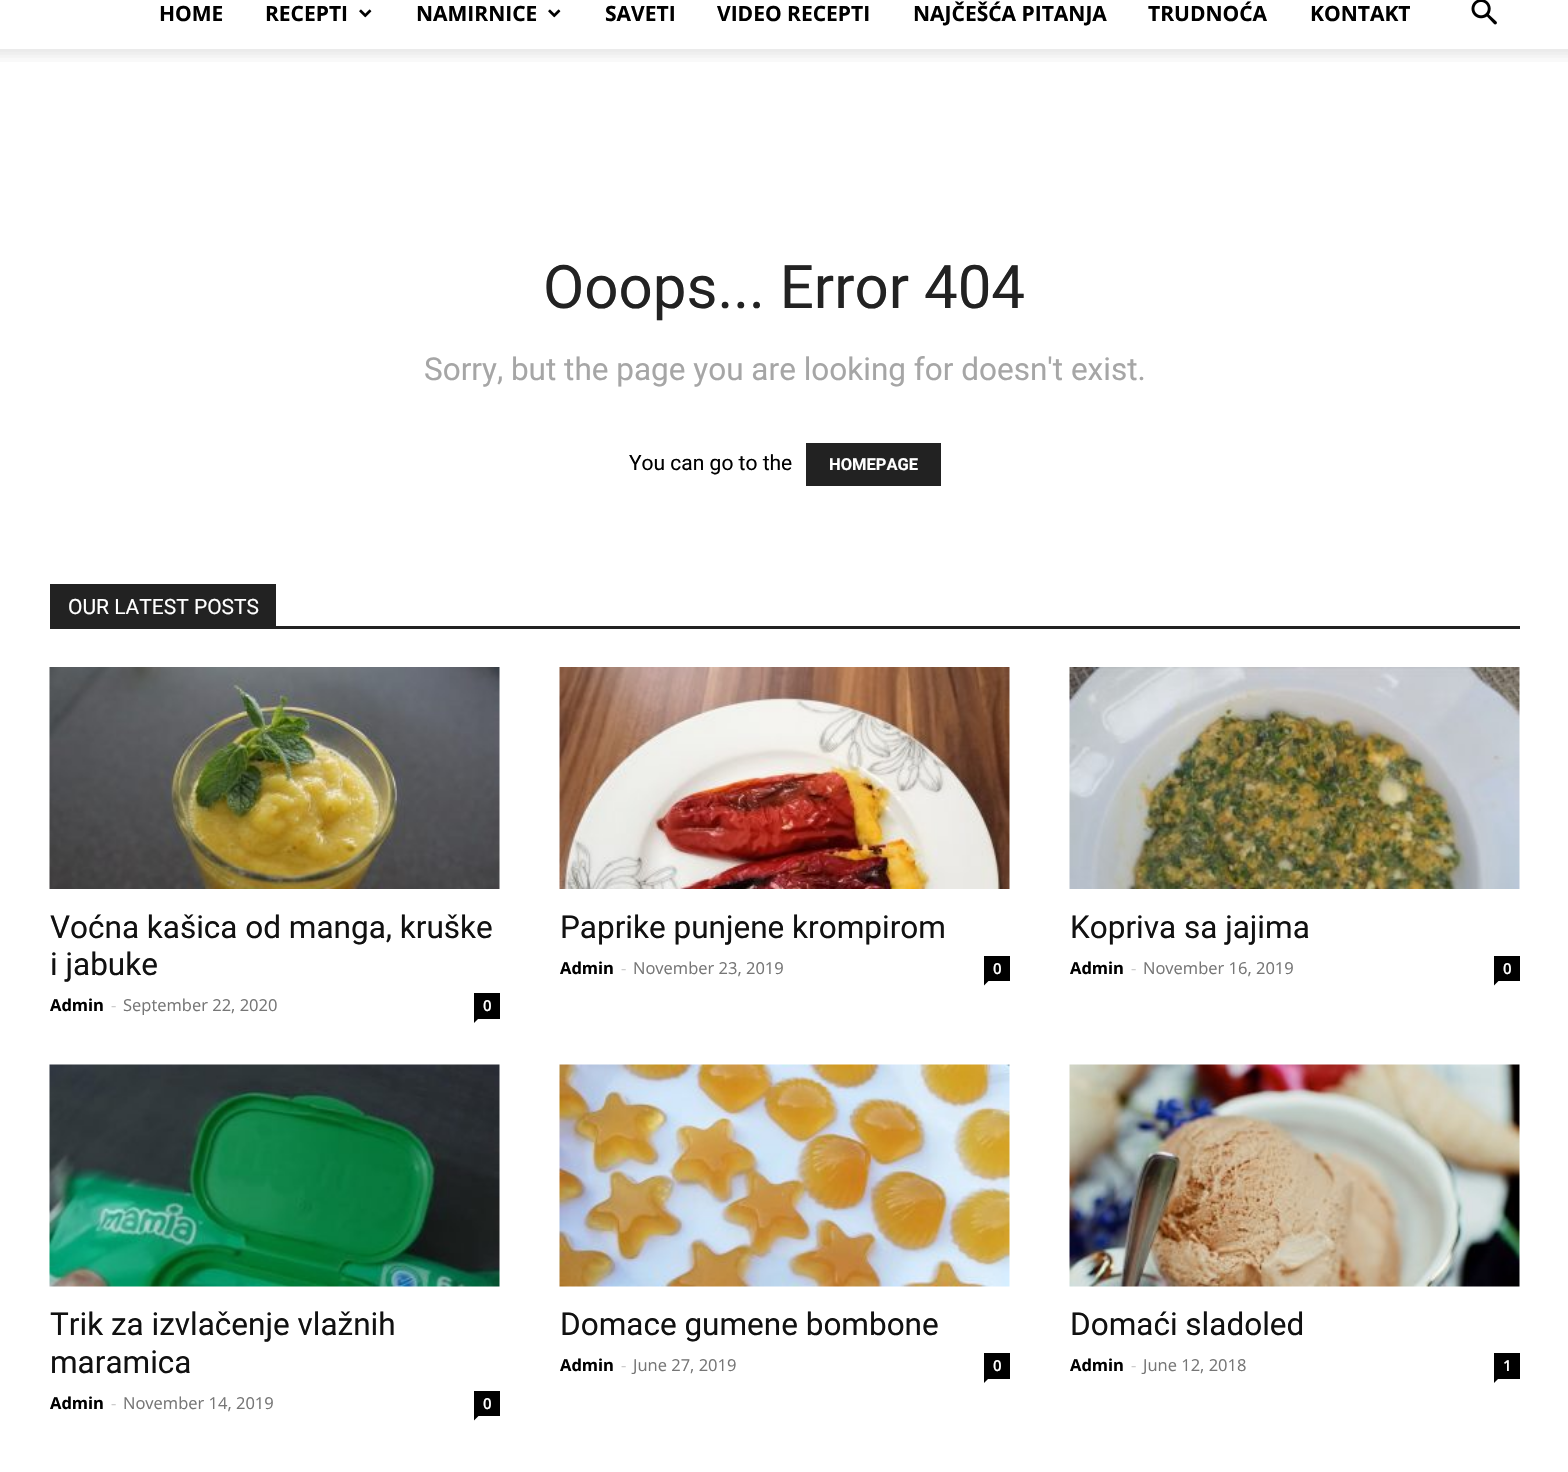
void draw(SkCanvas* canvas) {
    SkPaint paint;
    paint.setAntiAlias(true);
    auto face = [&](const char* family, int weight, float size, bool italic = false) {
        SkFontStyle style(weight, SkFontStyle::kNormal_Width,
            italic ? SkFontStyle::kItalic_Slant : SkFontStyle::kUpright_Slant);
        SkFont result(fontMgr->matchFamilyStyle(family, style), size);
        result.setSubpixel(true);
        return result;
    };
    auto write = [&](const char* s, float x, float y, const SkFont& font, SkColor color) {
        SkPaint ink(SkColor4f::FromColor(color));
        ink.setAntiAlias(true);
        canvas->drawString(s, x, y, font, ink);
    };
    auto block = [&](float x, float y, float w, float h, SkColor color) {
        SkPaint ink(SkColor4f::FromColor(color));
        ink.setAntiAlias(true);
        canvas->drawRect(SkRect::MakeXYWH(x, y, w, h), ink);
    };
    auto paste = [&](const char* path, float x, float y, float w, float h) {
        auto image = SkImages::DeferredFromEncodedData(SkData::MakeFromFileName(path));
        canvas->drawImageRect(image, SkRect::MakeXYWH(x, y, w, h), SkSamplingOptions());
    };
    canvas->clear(SK_ColorWHITE);
    auto kFont1 = face("Open Sans", 700, 21);
    write("HOME", 159, 21, kFont1, SK_ColorBLACK);
    write("RECEPTI", 265, 21, kFont1, SK_ColorBLACK);
    paste("pic1.png", 359, 9, 13, 9);
    write("NAMIRNICE", 416, 21, kFont1, SK_ColorBLACK);
    paste("pic1.png", 548, 9, 13, 9);
    write("SAVETI", 605, 21, kFont1, SK_ColorBLACK);
    write("VIDEO RECEPTI", 717, 21, kFont1, SK_ColorBLACK);
    write("NAJČEŠĆA PITANJA", 913, 21, kFont1, SK_ColorBLACK);
    write("TRUDNOĆA", 1148, 21, kFont1, SK_ColorBLACK);
    write("KONTAKT", 1310, 21, kFont1, SK_ColorBLACK);
    paste("pic2.png", 1471, 0, 26, 25);
    paste("pic3.png", 0, 49, 1568, 13);
    auto kFont2 = face("Roboto", 400, 60);
    write("Ooops... Error 404", 543, 308, kFont2, SkColorSetRGB(34, 34, 34));
    auto kFont3 = face("Roboto", 400, 31.5f);
    write("Sorry, but the page you are looking for doesn't exist.", 424, 380, kFont3, SkColorSetRGB(166, 166, 166));
    auto kFont4 = face("Roboto", 400, 21);
    write("You can go to the", 629, 470, kFont4, SK_ColorBLACK);
    block(806, 443, 135, 43, SkColorSetRGB(34, 34, 34));
    auto kFont5 = face("Roboto", 700, 16.5f);
    write("HOMEPAGE", 829, 470, kFont5, SK_ColorWHITE);
    block(50, 626, 1470, 3, SkColorSetRGB(34, 34, 34));
    block(50, 584, 226, 42, SkColorSetRGB(34, 34, 34));
    write("OUR LATEST POSTS", 68, 614, kFont4, SK_ColorWHITE);
    paste("pic4.png", 49, 667, 451, 222);
    write("Voćna kašica od manga, kruške", 50, 938, kFont3, SkColorSetRGB(17, 17, 17));
    write("i jabuke", 50, 975, kFont3, SkColorSetRGB(17, 17, 17));
    auto kFont6 = face("Open Sans", 700, 16.5f);
    write("Admin", 50, 1011, kFont6, SK_ColorBLACK);
    auto kFont7 = face("Open Sans", 400, 16.5f);
    write("-", 111, 1011, kFont7, SkColorSetRGB(204, 204, 204));
    write("September 22, 2020", 123, 1011, kFont7, SkColorSetRGB(118, 118, 118));
    block(474, 993, 26, 26, SK_ColorBLACK);
    auto kFont8 = face("Open Sans", 600, 15);
    write("0", 483, 1011, kFont8, SK_ColorWHITE);
    paint.setColor(SK_ColorBLACK);
    canvas->drawPath(SkPathBuilder().moveTo(474, 1018.5f).lineTo(478.5f, 1018.5f).lineTo(474, 1023).close().detach(), paint);
    paste("pic5.png", 559, 667, 451, 222);
    write("Paprike punjene krompirom", 560, 938, kFont3, SkColorSetRGB(17, 17, 17));
    write("Admin", 560, 974, kFont6, SK_ColorBLACK);
    write("-", 621, 974, kFont7, SkColorSetRGB(204, 204, 204));
    write("November 23, 2019", 633, 974, kFont7, SkColorSetRGB(118, 118, 118));
    block(984, 956, 26, 25, SK_ColorBLACK);
    write("0", 993, 974, kFont8, SK_ColorWHITE);
    canvas->drawPath(SkPathBuilder().moveTo(984, 981).lineTo(988.5f, 981).lineTo(984, 985.5f).close().detach(), paint);
    paste("pic6.png", 1069, 667, 451, 222);
    write("Kopriva sa jajima", 1070, 938, kFont3, SkColorSetRGB(17, 17, 17));
    write("Admin", 1070, 974, kFont6, SK_ColorBLACK);
    write("-", 1131, 974, kFont7, SkColorSetRGB(204, 204, 204));
    write("November 16, 2019", 1143, 974, kFont7, SkColorSetRGB(118, 118, 118));
    block(1494, 956, 26, 25, SK_ColorBLACK);
    write("0", 1503, 974, kFont8, SK_ColorWHITE);
    canvas->drawPath(SkPathBuilder().moveTo(1494, 981).lineTo(1498.5f, 981).lineTo(1494, 985.5f).close().detach(), paint);
    paste("pic7.png", 49, 1064, 451, 223);
    write("Trik za izvlačenje vlažnih", 50, 1335, kFont3, SkColorSetRGB(17, 17, 17));
    write("maramica", 50, 1373, kFont3, SkColorSetRGB(17, 17, 17));
    write("Admin", 50, 1409, kFont6, SK_ColorBLACK);
    write("-", 111, 1409, kFont7, SkColorSetRGB(204, 204, 204));
    write("November 14, 2019", 123, 1409, kFont7, SkColorSetRGB(118, 118, 118));
    block(474, 1391, 26, 25, SK_ColorBLACK);
    write("0", 483, 1409, kFont8, SK_ColorWHITE);
    canvas->drawPath(SkPathBuilder().moveTo(474, 1416).lineTo(478.5f, 1416).lineTo(474, 1420.5f).close().detach(), paint);
    paste("pic8.png", 559, 1064, 451, 223);
    write("Domace gumene bombone", 560, 1335, kFont3, SkColorSetRGB(17, 17, 17));
    write("Admin", 560, 1371, kFont6, SK_ColorBLACK);
    write("-", 621, 1371, kFont7, SkColorSetRGB(204, 204, 204));
    write("June 27, 2019", 633, 1371, kFont7, SkColorSetRGB(118, 118, 118));
    block(984, 1353, 26, 26, SK_ColorBLACK);
    write("0", 993, 1371, kFont8, SK_ColorWHITE);
    canvas->drawPath(SkPathBuilder().moveTo(984, 1378.5f).lineTo(988.5f, 1378.5f).lineTo(984, 1383).close().detach(), paint);
    paste("pic9.png", 1069, 1064, 451, 223);
    write("Domaći sladoled", 1070, 1335, kFont3, SkColorSetRGB(17, 17, 17));
    write("Admin", 1070, 1371, kFont6, SK_ColorBLACK);
    write("-", 1131, 1371, kFont7, SkColorSetRGB(204, 204, 204));
    write("June 12, 2018", 1143, 1371, kFont7, SkColorSetRGB(118, 118, 118));
    block(1494, 1353, 26, 26, SK_ColorBLACK);
    write("1", 1503, 1371, kFont8, SK_ColorWHITE);
    canvas->drawPath(SkPathBuilder().moveTo(1494, 1378.5f).lineTo(1498.5f, 1378.5f).lineTo(1494, 1383).close().detach(), paint);
}
